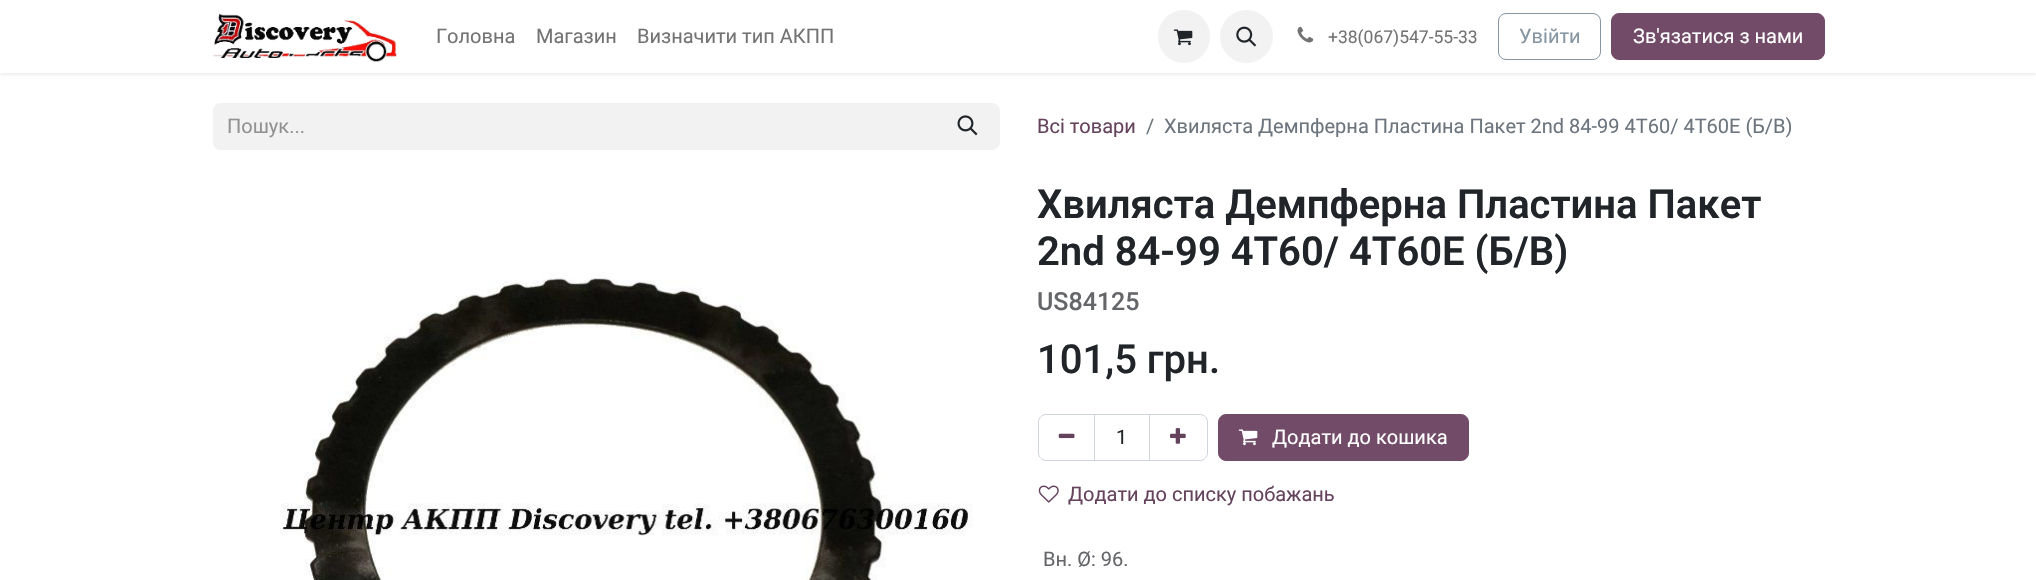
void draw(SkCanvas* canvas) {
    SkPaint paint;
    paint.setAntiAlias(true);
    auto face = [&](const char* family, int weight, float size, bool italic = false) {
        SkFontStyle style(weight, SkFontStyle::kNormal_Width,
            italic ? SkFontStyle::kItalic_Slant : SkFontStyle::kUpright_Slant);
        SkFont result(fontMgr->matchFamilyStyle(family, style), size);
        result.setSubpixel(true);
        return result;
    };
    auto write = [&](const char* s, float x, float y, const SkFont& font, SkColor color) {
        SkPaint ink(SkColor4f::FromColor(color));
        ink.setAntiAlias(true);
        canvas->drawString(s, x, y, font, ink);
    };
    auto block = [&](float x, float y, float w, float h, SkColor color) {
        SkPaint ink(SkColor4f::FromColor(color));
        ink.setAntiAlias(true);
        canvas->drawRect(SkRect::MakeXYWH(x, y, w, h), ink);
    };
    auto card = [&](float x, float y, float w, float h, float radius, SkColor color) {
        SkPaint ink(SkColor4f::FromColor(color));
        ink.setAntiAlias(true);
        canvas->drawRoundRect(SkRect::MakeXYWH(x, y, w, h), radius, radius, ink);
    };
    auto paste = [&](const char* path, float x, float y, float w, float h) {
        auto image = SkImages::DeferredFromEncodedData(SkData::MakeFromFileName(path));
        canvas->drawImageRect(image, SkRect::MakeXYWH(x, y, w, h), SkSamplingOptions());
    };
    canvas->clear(SK_ColorWHITE);
    paint.setColor(SkColorSetARGB(26, 0, 0, 0));
    paint.setMaskFilter(SkMaskFilter::MakeBlur(kNormal_SkBlurStyle, 2));
    canvas->drawRect(SkRect::MakeXYWH(0, 1, 2036, 73), paint);
    paint.setMaskFilter(nullptr);
    block(0, 0, 2036, 73, SK_ColorWHITE);
    paste("pic1.png", 213, 13, 184, 49);
    auto kFont1 = face("Roboto", 400, 20);
    write("Головна", 436, 43, kFont1, SkColorSetRGB(115, 115, 115));
    write("Магазин", 536, 43, kFont1, SkColorSetRGB(115, 115, 115));
    write("Визначити тип АКПП", 637, 43, kFont1, SkColorSetRGB(115, 115, 115));
    card(1158, 10, 52, 53, 26, SkColorSetRGB(242, 242, 242));
    paste("pic2.png", 1173, 29, 20, 17);
    paint.setColor(SkColorSetRGB(242, 242, 242));
    canvas->drawCircle(1246.5f, 36.5f, 26.5f, paint);
    paste("pic3.png", 1236, 26, 21, 21);
    paste("pic4.png", 1297, 26, 17, 17);
    auto kFont2 = face("Roboto", 400, 17.5f);
    write("+38(067)547-55-33", 1328, 43, kFont2, SkColorSetRGB(115, 115, 115));
    paint.setStyle(SkPaint::kStroke_Style);
    paint.setStrokeWidth(1);
    paint.setColor(SkColorSetRGB(133, 149, 162));
    canvas->drawRoundRect(SkRect::MakeXYWH(1498.5f, 13.5f, 102, 46), 7.5f, 7.5f, paint);
    write("Увійти", 1519, 43, kFont1, SkColorSetRGB(133, 149, 162));
    paint.setStyle(SkPaint::kFill_Style);
    paint.setColor(SkColorSetRGB(113, 75, 103));
    canvas->drawRoundRect(SkRect::MakeXYWH(1611.5f, 13.5f, 213, 46), 7.5f, 7.5f, paint);
    paint.setStyle(SkPaint::kStroke_Style);
    canvas->drawRoundRect(SkRect::MakeXYWH(1611.5f, 13.5f, 213, 46), 7.5f, 7.5f, paint);
    write("Зв'язатися з нами", 1633, 43, kFont1, SK_ColorWHITE);
    paint.setStyle(SkPaint::kFill_Style);
    paint.setColor(SkColorSetRGB(243, 242, 242));
    canvas->drawPath(SkPathBuilder().moveTo(221, 103).lineTo(938, 103).lineTo(938, 150).lineTo(221, 150).cubicTo(216.5f, 150, 213, 146.5f, 213, 142).lineTo(213, 111).cubicTo(213, 106.5f, 216.5f, 103, 221, 103).close().detach(), paint);
    write("Пошук...", 227, 133, kFont1, SkColorSetRGB(144, 146, 148));
    canvas->drawPath(SkPathBuilder().moveTo(936.5f, 103.5f).lineTo(992, 103.5f).cubicTo(996, 103.5f, 999.5f, 107, 999.5f, 111).lineTo(999.5f, 142).cubicTo(999.5f, 146, 996, 149.5f, 992, 149.5f).lineTo(936.5f, 149.5f).close().detach(), paint);
    paint.setStyle(SkPaint::kStroke_Style);
    canvas->drawPath(SkPathBuilder().moveTo(936.5f, 103.5f).lineTo(992, 103.5f).cubicTo(996, 103.5f, 999.5f, 107, 999.5f, 111).lineTo(999.5f, 142).cubicTo(999.5f, 146, 996, 149.5f, 992, 149.5f).lineTo(936.5f, 149.5f).close().detach(), paint);
    paste("pic5.png", 957, 115, 21, 21);
    write("Всі товари", 1037, 133, kFont1, SkColorSetRGB(101, 67, 92));
    write("/", 1146, 133, kFont1, SkColorSetRGB(108, 117, 125));
    write("Хвиляста Демпферна Пластина Пакет 2nd 84-99 4T60/ 4T60E (Б/В)", 1164, 133, kFont1, SkColorSetRGB(108, 117, 125));
    paste("pic6.png", 280, 272, 693, 308);
    auto kFont3 = face("Roboto", 600, 40);
    write("Хвиляста Демпферна Пластина Пакет", 1037, 218, kFont3, SkColorSetRGB(33, 37, 41));
    write("2nd 84-99 4T60/ 4T60E (Б/В)", 1037, 265, kFont3, SkColorSetRGB(33, 37, 41));
    auto kFont4 = face("Roboto", 500, 25);
    write("US84125", 1037, 310, kFont4, SkColorSetRGB(100, 102, 105));
    auto kFont5 = face("Roboto", 500, 40);
    write("101,5 грн.", 1037, 373, kFont5, SkColorSetRGB(33, 37, 41));
    paint.setColor(SkColorSetRGB(206, 212, 218));
    canvas->drawRect(SkRect::MakeXYWH(1094.5f, 414.5f, 55, 46), paint);
    canvas->drawPath(SkPathBuilder().moveTo(1046, 414.5f).lineTo(1094.5f, 414.5f).lineTo(1094.5f, 460.5f).lineTo(1046, 460.5f).cubicTo(1042, 460.5f, 1038.5f, 457, 1038.5f, 453).lineTo(1038.5f, 422).cubicTo(1038.5f, 418, 1042, 414.5f, 1046, 414.5f).close().detach(), paint);
    paste("pic7.png", 1058, 433, 17, 6);
    write("1", 1116, 444, kFont1, SkColorSetRGB(33, 37, 41));
    canvas->drawPath(SkPathBuilder().moveTo(1149.5f, 414.5f).lineTo(1200, 414.5f).cubicTo(1204, 414.5f, 1207.5f, 418, 1207.5f, 422).lineTo(1207.5f, 453).cubicTo(1207.5f, 457, 1204, 460.5f, 1200, 460.5f).lineTo(1149.5f, 460.5f).close().detach(), paint);
    paste("pic8.png", 1170, 428, 16, 16);
    paint.setStyle(SkPaint::kFill_Style);
    paint.setColor(SkColorSetRGB(113, 75, 103));
    canvas->drawRoundRect(SkRect::MakeXYWH(1218.5f, 414.5f, 250, 46), 7.5f, 7.5f, paint);
    paint.setStyle(SkPaint::kStroke_Style);
    canvas->drawRoundRect(SkRect::MakeXYWH(1218.5f, 414.5f, 250, 46), 7.5f, 7.5f, paint);
    paste("pic9.png", 1238, 429, 20, 17);
    write("Додати до кошика", 1272, 444, kFont1, SK_ColorWHITE);
    paste("pic10.png", 1038, 485, 21, 18);
    write("Додати до списку побажань", 1068, 501, kFont1, SkColorSetRGB(101, 67, 92));
    write("Вн. Ø: 96.", 1043, 566, kFont1, SkColorSetRGB(100, 102, 105));
}
